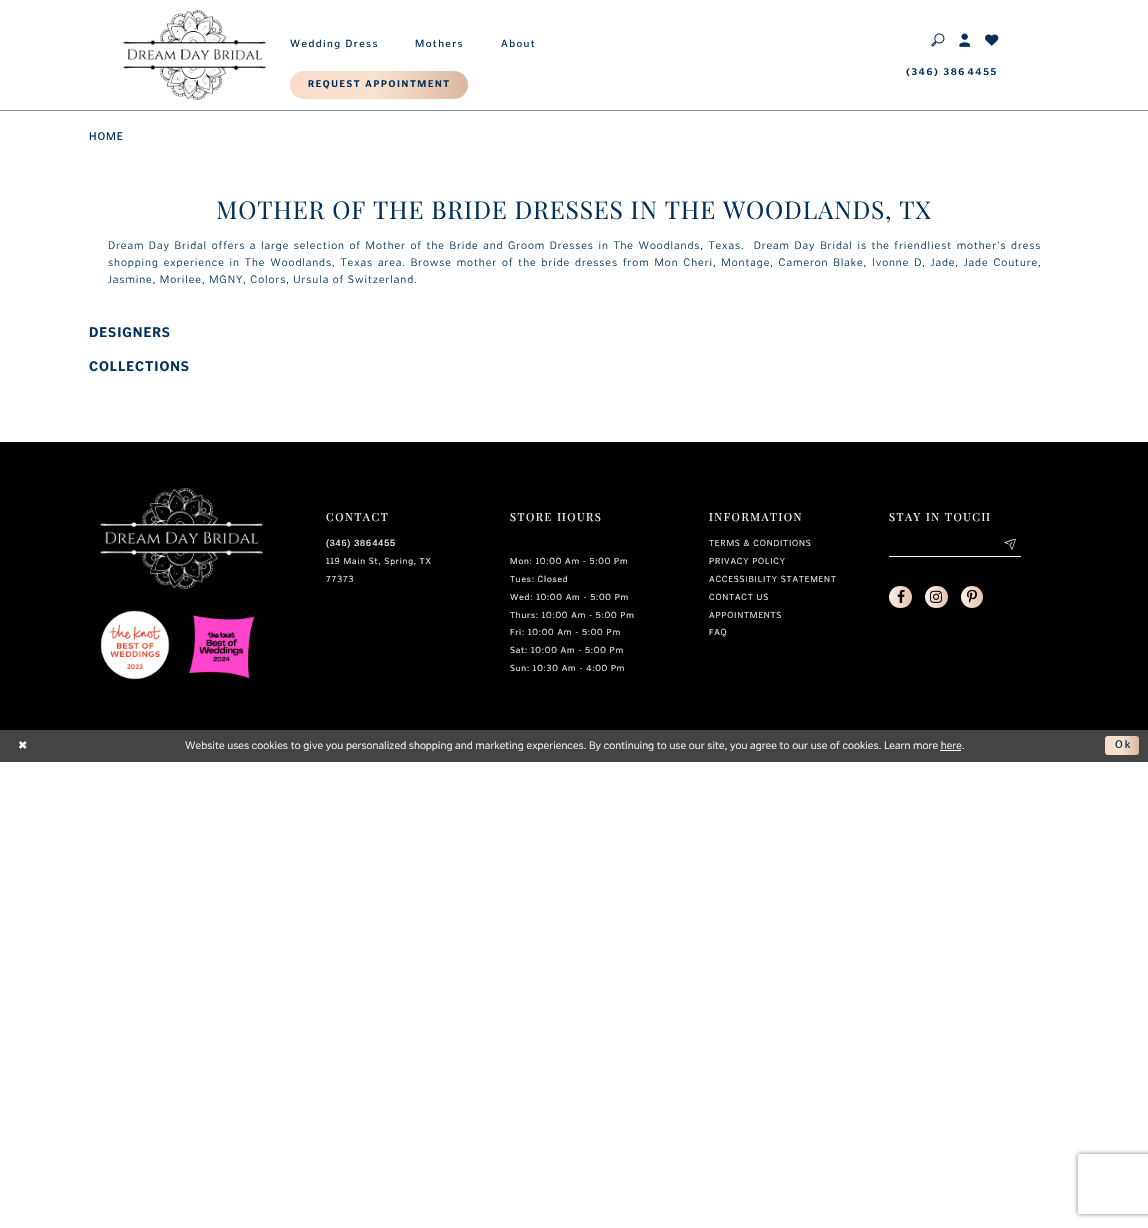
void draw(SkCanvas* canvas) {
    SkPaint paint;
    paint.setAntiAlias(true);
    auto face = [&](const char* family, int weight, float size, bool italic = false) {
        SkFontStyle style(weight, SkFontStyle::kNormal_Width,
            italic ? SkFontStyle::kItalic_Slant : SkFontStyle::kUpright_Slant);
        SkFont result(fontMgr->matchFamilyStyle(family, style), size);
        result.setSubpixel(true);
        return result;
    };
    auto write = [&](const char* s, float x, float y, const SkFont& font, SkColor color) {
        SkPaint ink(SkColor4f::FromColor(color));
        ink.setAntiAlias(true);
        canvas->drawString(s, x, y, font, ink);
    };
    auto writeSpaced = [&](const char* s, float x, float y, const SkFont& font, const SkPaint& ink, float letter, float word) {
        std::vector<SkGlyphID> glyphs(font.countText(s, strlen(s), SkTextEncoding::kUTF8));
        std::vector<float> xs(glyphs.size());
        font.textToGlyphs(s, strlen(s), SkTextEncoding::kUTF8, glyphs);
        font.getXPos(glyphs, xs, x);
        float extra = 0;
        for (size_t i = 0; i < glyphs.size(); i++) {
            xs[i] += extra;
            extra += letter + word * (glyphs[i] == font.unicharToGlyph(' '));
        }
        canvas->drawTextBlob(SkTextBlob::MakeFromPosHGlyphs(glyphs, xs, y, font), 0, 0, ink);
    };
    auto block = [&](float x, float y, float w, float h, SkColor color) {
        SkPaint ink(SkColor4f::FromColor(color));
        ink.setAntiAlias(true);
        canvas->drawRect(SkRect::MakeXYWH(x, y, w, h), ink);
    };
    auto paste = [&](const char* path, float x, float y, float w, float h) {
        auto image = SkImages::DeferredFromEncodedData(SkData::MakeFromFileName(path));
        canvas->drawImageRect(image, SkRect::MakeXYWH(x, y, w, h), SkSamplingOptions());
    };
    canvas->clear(SK_ColorWHITE);
    block(0, 110, 1148, 1, SkColorSetRGB(128, 152, 173));
    paste("pic1.png", 123, 10, 143, 90);
    auto kFont1 = face("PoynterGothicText", 400, 10.5f);
    paint.setColor(SkColorSetRGB(0, 48, 91));
    writeSpaced("Wedding Dress", 290, 47, kFont1, paint, 1.4f, 0);
    writeSpaced("Mothers", 415, 47, kFont1, paint, 1.4f, 0);
    writeSpaced("About", 501, 47, kFont1, paint, 1.4f, 0);
    {
        const SkColor colors[] = {SkColorSetRGB(250, 219, 203), SkColorSetRGB(250, 227, 207), SkColorSetRGB(220, 183, 160)};
        const float stops[] = {0, 0.47f, 1};
        const SkPoint ends[] = {{290, 85}, {468, 85}};
        paint.setShader(SkGradientShader::MakeLinear(ends, colors, stops, 3, SkTileMode::kClamp));
        paint.setAlpha(255);
    }
    canvas->drawRoundRect(SkRect::MakeXYWH(290, 71, 178, 28), 14, 14, paint);
    auto kFont2 = face("PoynterGothicText", 700, 9.75f);
    paint.setShader(nullptr);
    paint.setColor(SkColorSetRGB(0, 48, 91));
    writeSpaced("REQUEST APPOINTMENT", 308, 87, kFont2, paint, 1.6f, 0);
    paste("pic2.png", 931, 33, 14, 14);
    paste("pic3.png", 959, 33, 11, 14);
    paste("pic4.png", 985, 34, 14, 12);
    writeSpaced("(346) 386‑4455", 906, 75, kFont2, paint, 1.6f, 0);
    auto kFont3 = face("PoynterGothicText", 400, 11.2f);
    writeSpaced("HOME", 89, 140, kFont3, paint, 0.9f, 0);
    auto kFont4 = face("Playfair Display", 400, 24.6f);
    writeSpaced("MOTHER OF THE BRIDE DRESSES IN THE WOODLANDS, TX", 216, 219, kFont4, paint, 0.8f, 0);
    auto kFont5 = face("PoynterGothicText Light", 300, 11.2f);
    writeSpaced("Dream Day Bridal offers a large selection of Mother of the Bride and Groom Dresses in The Woodlands, Texas.  Dream Day Bridal is the friendliest mother's dress", 108, 249, kFont5, paint, 0.9f, 1);
    writeSpaced("shopping experience in The Woodlands, Texas area. Browse mother of the bride dresses from Mon Cheri, Montage, Cameron Blake, Ivonne D, Jade, Jade Couture,", 108, 266, kFont5, paint, 0.9f, 1.3f);
    writeSpaced("Jasmine, Morilee, MGNY, Colors, Ursula of Switzerland.", 108, 283, kFont5, paint, 0.9f, 0);
    auto kFont6 = face("PoynterGothicText", 700, 14);
    writeSpaced("DESIGNERS", 89, 337, kFont6, paint, 0.9f, 0);
    writeSpaced("COLLECTIONS", 89, 371, kFont6, paint, 0.9f, 0);
    block(0, 442, 1148, 288, SK_ColorBLACK);
    paste("pic5.png", 100, 488, 163, 101);
    paste("pic6.png", 100, 610, 70, 70);
    paste("pic7.png", 189, 615, 66, 64);
    auto kFont7 = face("Playfair Display", 400, 11.2f);
    paint.setColor(SK_ColorWHITE);
    writeSpaced("CONTACT", 326, 521, kFont7, paint, 1.5f, 0);
    auto kFont8 = face("Liberation Sans", 400, 9);
    writeSpaced("(346) 386‑4455", 326, 546, kFont8, paint, 0.8f, 0);
    auto kFont9 = face("PoynterGothicText Light", 300, 9);
    writeSpaced("119 Main St, Spring, TX", 326, 564, kFont9, paint, 0.8f, 0);
    writeSpaced("77373", 326, 582, kFont9, paint, 0.8f, 0);
    writeSpaced("STORE HOURS", 510, 521, kFont7, paint, 1.5f, 0);
    writeSpaced("Mon: 10:00 Am - 5:00 Pm", 510, 564, kFont9, paint, 0.8f, 0);
    writeSpaced("Tues: Closed", 510, 582, kFont9, paint, 0.8f, 0);
    writeSpaced("Wed: 10:00 Am - 5:00 Pm", 510, 600, kFont9, paint, 0.8f, 0);
    writeSpaced("Thurs: 10:00 Am - 5:00 Pm", 510, 618, kFont9, paint, 0.8f, 0);
    writeSpaced("Fri: 10:00 Am - 5:00 Pm", 510, 635, kFont9, paint, 0.8f, 0);
    writeSpaced("Sat: 10:00 Am - 5:00 Pm", 510, 653, kFont9, paint, 0.8f, 0);
    writeSpaced("Sun: 10:30 Am - 4:00 Pm", 510, 671, kFont9, paint, 0.8f, 0);
    writeSpaced("INFORMATION", 709, 521, kFont7, paint, 1.5f, 0);
    writeSpaced("TERMS & CONDITIONS", 709, 546, kFont9, paint, 0.8f, 0);
    writeSpaced("PRIVACY POLICY", 709, 564, kFont9, paint, 0.8f, 0);
    writeSpaced("ACCESSIBILITY STATEMENT", 709, 582, kFont9, paint, 0.8f, 0);
    writeSpaced("CONTACT US", 709, 600, kFont9, paint, 0.8f, 0);
    writeSpaced("APPOINTMENTS", 709, 618, kFont9, paint, 0.8f, 0);
    writeSpaced("FAQ", 709, 635, kFont9, paint, 0.8f, 0);
    writeSpaced("STAY IN TOUCH", 889, 521, kFont7, paint, 1.5f, 0);
    block(889, 556, 132, 1, SK_ColorWHITE);
    paste("pic8.png", 1004, 539, 12, 11);
    {
        const SkColor colors[] = {SkColorSetRGB(253, 239, 231), SkColorSetRGB(228, 195, 173)};
        const float stops[] = {0, 1};
        const SkPoint ends[] = {{889, 597}, {912, 597}};
        paint.setShader(SkGradientShader::MakeLinear(ends, colors, stops, 2, SkTileMode::kClamp));
        paint.setAlpha(255);
    }
    canvas->drawRoundRect(SkRect::MakeXYWH(889, 586, 23, 22), 11, 11, paint);
    paste("pic9.png", 897, 590, 8, 13);
    {
        const SkColor colors[] = {SkColorSetRGB(253, 239, 231), SkColorSetRGB(228, 195, 173)};
        const float stops[] = {0, 1};
        const SkPoint ends[] = {{925, 597}, {948, 597}};
        paint.setShader(SkGradientShader::MakeLinear(ends, colors, stops, 2, SkTileMode::kClamp));
        paint.setAlpha(255);
    }
    canvas->drawRoundRect(SkRect::MakeXYWH(925, 586, 23, 22), 11, 11, paint);
    paste("pic10.png", 930, 590, 13, 13);
    {
        const SkColor colors[] = {SkColorSetRGB(253, 239, 231), SkColorSetRGB(228, 195, 173)};
        const float stops[] = {0, 1};
        const SkPoint ends[] = {{961, 597}, {983, 597}};
        paint.setShader(SkGradientShader::MakeLinear(ends, colors, stops, 2, SkTileMode::kClamp));
        paint.setAlpha(255);
    }
    canvas->drawCircle(972, 597, 11, paint);
    paste("pic11.png", 967, 590, 10, 13);
    block(0, 730, 1148, 32, SkColorSetRGB(68, 68, 68));
    auto kFont10 = face("DejaVu Sans", 400, 11.2f);
    paint.setShader(nullptr);
    paint.setColor(SK_ColorWHITE);
    writeSpaced("✖", 18, 749, kFont10, paint, 2, 0);
    write("Website uses cookies to give you personalized shopping and marketing experiences. By continuing to use our site, you agree to our use of cookies. Learn more here.", 185, 749, kFont5, SK_ColorWHITE);
    block(940, 750, 21, 1, SK_ColorWHITE);
    {
        const SkColor colors[] = {SkColorSetRGB(250, 219, 203), SkColorSetRGB(250, 227, 207), SkColorSetRGB(220, 183, 160)};
        const float stops[] = {0, 0.47f, 1};
        const SkPoint ends[] = {{1105, 746}, {1139, 746}};
        paint.setShader(SkGradientShader::MakeLinear(ends, colors, stops, 3, SkTileMode::kClamp));
        paint.setAlpha(255);
    }
    canvas->drawRoundRect(SkRect::MakeXYWH(1105, 736, 34, 19), 3, 3, paint);
    paint.setShader(nullptr);
    paint.setColor(SkColorSetRGB(0, 48, 91));
    writeSpaced("Ok", 1115, 748, kFont3, paint, 2, 0);
    canvas->save();
    canvas->clipPath(SkPathBuilder(SkPathFillType::kEvenOdd).moveTo(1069, 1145).lineTo(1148, 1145).lineTo(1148, 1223).lineTo(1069, 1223).close().moveTo(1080, 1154).lineTo(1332, 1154).cubicTo(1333, 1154, 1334, 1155, 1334, 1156).lineTo(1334, 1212).cubicTo(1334, 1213, 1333, 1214, 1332, 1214).lineTo(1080, 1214).cubicTo(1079, 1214, 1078, 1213, 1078, 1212).lineTo(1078, 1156).cubicTo(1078, 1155, 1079, 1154, 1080, 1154).close().detach(), true);
    paint.setColor(SkColorSetRGB(128, 128, 128));
    paint.setMaskFilter(SkMaskFilter::MakeBlur(kNormal_SkBlurStyle, 2.5f));
    canvas->drawRoundRect(SkRect::MakeXYWH(1078, 1154, 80, 60), 2, 2, paint);
    paint.setMaskFilter(nullptr);
    canvas->restore();
}
